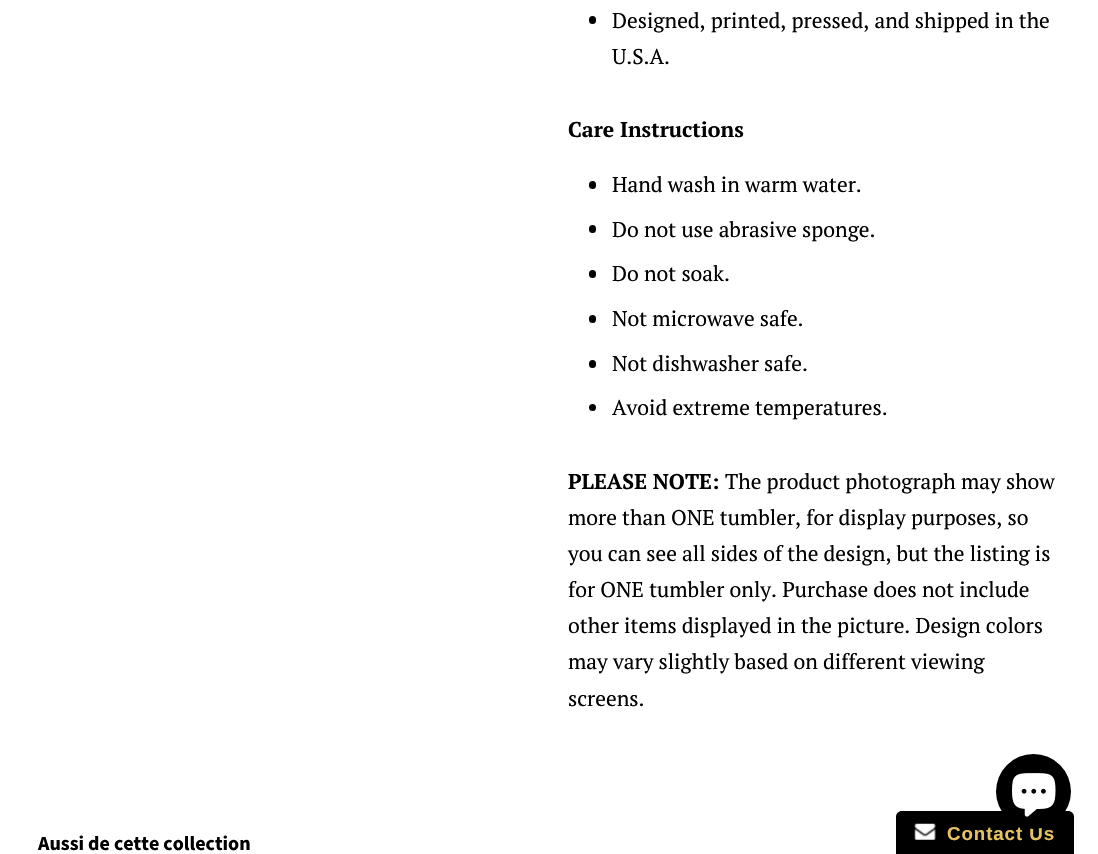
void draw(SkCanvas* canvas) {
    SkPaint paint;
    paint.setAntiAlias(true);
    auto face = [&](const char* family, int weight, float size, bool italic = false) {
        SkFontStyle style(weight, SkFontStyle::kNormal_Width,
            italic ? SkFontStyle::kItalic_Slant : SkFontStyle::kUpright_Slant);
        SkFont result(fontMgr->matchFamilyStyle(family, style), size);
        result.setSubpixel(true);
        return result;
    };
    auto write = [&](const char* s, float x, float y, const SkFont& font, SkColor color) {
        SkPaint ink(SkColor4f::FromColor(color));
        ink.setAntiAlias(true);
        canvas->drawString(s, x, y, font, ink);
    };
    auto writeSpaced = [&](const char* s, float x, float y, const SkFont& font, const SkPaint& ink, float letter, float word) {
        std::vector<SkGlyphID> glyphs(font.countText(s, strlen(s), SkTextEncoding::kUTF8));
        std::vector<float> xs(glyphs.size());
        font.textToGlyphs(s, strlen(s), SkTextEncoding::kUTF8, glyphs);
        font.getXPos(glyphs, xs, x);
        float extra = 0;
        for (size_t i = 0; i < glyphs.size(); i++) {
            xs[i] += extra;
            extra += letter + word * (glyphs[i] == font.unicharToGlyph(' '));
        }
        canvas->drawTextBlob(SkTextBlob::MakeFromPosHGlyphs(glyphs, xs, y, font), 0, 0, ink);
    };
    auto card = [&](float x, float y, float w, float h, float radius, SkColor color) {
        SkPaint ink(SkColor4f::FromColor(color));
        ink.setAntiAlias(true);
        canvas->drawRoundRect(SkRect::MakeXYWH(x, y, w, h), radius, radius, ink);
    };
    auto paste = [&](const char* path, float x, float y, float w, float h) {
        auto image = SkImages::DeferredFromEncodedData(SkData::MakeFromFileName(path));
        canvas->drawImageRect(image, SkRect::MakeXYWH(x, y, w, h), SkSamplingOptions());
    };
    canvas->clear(SK_ColorWHITE);
    card(589, 16, 7, 8, 3.5f, SK_ColorBLACK);
    auto kFont1 = face("PT Serif", 400, 21.25f);
    write("Designed, printed, pressed, and shipped in the", 612, 28, kFont1, SK_ColorBLACK);
    write("U.S.A.", 612, 64, kFont1, SK_ColorBLACK);
    auto kFont2 = face("PT Serif", 700, 21.25f);
    write("Care Instructions", 568, 137, kFont2, SK_ColorBLACK);
    card(589, 181, 7, 8, 3.5f, SK_ColorBLACK);
    write("Hand wash in warm water.", 612, 192, kFont1, SK_ColorBLACK);
    card(589, 225, 7, 8, 3.5f, SK_ColorBLACK);
    write("Do not use abrasive sponge.", 612, 237, kFont1, SK_ColorBLACK);
    card(589, 270, 7, 8, 3.5f, SK_ColorBLACK);
    write("Do not soak.", 612, 281, kFont1, SK_ColorBLACK);
    card(589, 315, 7, 8, 3.5f, SK_ColorBLACK);
    write("Not microwave safe.", 612, 326, kFont1, SK_ColorBLACK);
    card(589, 360, 7, 8, 3.5f, SK_ColorBLACK);
    write("Not dishwasher safe.", 612, 371, kFont1, SK_ColorBLACK);
    paint.setColor(SK_ColorBLACK);
    canvas->drawCircle(592.5f, 407.5f, 3.5f, paint);
    write("Avoid extreme temperatures.", 612, 415, kFont1, SK_ColorBLACK);
    write("PLEASE NOTE:", 568, 489, kFont2, SK_ColorBLACK);
    write("The product photograph may show", 725, 489, kFont1, SK_ColorBLACK);
    write("more than ONE tumbler, for display purposes, so", 568, 525, kFont1, SK_ColorBLACK);
    write("you can see all sides of the design, but the listing is", 568, 561, kFont1, SK_ColorBLACK);
    write("for ONE tumbler only. Purchase does not include", 568, 597, kFont1, SK_ColorBLACK);
    write("other items displayed in the picture. Design colors", 568, 633, kFont1, SK_ColorBLACK);
    write("may vary slightly based on different viewing", 568, 669, kFont1, SK_ColorBLACK);
    write("screens.", 568, 706, kFont1, SK_ColorBLACK);
    auto kFont3 = face("Source Sans Pro", 700, 20);
    write("Aussi de cette collection", 38, 850, kFont3, SK_ColorBLACK);
    canvas->drawPath(SkPathBuilder().moveTo(902, 811).lineTo(1068, 811).cubicTo(1071.5f, 811, 1074, 813.5f, 1074, 817).lineTo(1074, 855).lineTo(896, 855).lineTo(896, 817).cubicTo(896, 813.5f, 898.5f, 811, 902, 811).close().detach(), paint);
    auto kFont4 = face("Liberation Sans", 700, 18.75f);
    paint.setColor(SkColorSetRGB(231, 194, 98));
    writeSpaced("Contact Us", 947, 840, kFont4, paint, 0.9f, 0);
    paint.setColor(SK_ColorBLACK);
    canvas->drawCircle(1033.5f, 791.5f, 37.5f, paint);
    paste("pic1.png", 1012, 773, 44, 44);
    paste("pic2.png", 914, 823, 22, 17);
}
